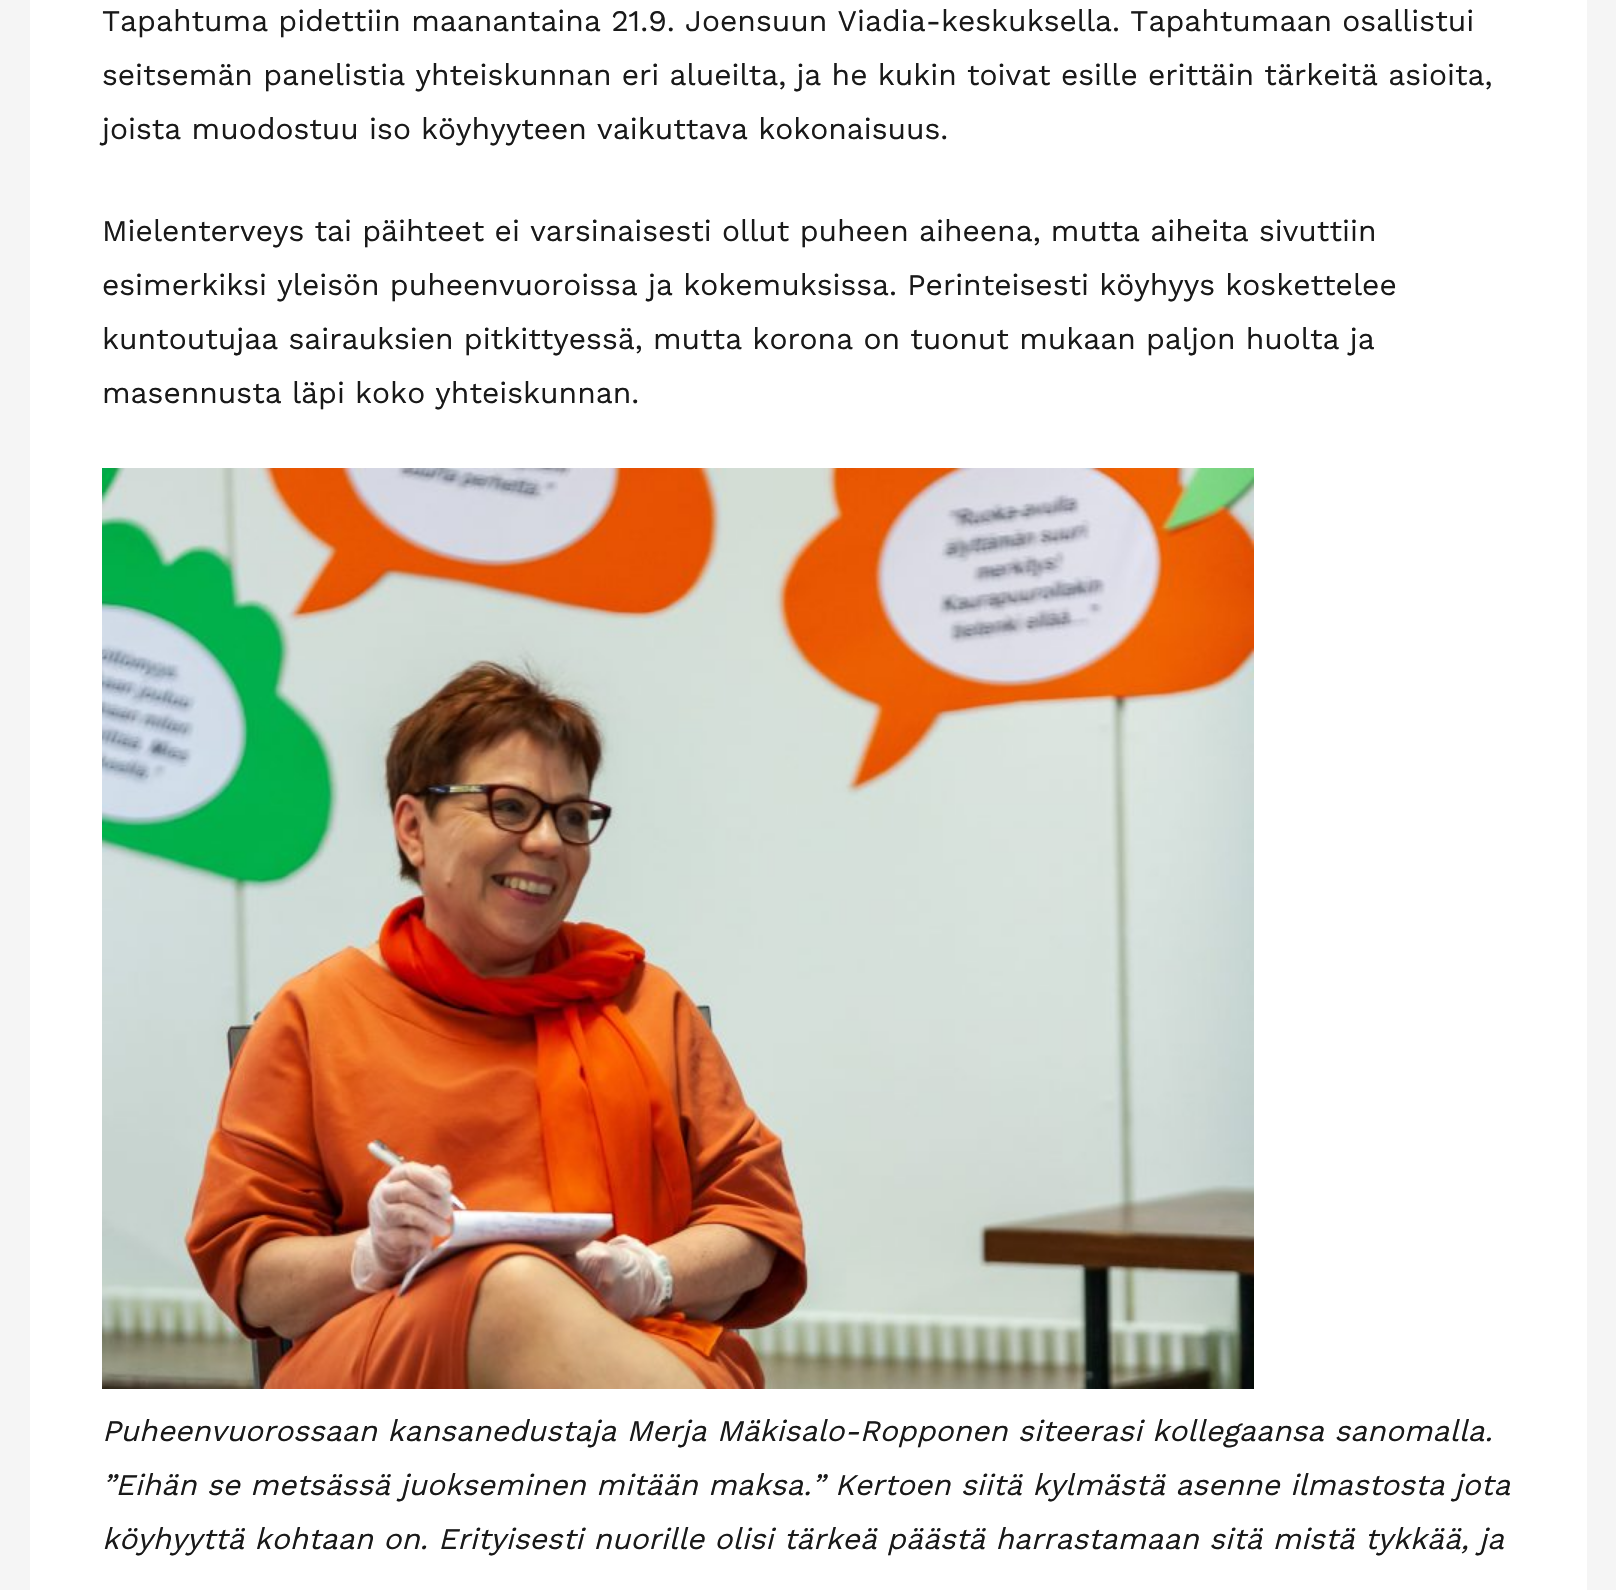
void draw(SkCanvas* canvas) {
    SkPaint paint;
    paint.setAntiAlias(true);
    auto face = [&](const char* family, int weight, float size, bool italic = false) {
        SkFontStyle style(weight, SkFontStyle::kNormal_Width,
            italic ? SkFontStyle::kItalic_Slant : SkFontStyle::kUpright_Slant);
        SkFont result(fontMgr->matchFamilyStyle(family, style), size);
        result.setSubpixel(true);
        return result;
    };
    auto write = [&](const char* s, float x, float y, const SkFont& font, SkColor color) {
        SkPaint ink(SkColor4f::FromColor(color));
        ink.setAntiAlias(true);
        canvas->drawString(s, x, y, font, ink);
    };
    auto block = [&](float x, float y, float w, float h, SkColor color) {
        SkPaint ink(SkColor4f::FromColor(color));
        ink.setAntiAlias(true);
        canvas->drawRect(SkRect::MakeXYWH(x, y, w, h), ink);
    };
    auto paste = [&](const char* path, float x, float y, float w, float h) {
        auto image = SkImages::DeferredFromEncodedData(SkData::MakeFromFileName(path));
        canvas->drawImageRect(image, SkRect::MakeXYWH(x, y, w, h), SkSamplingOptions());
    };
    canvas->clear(SkColorSetRGB(245, 245, 245));
    block(30, 0, 1557, 1590, SK_ColorWHITE);
    auto kFont1 = face("Work Sans", 400, 30);
    write("Tapahtuma pidettiin maanantaina 21.9. Joensuun Viadia-keskuksella. Tapahtumaan osallistui", 102, 31, kFont1, SkColorSetRGB(25, 25, 25));
    write("seitsemän panelistia yhteiskunnan eri alueilta, ja he kukin toivat esille erittäin tärkeitä asioita,", 102, 85, kFont1, SkColorSetRGB(25, 25, 25));
    write("joista muodostuu iso köyhyyteen vaikuttava kokonaisuus.", 102, 139, kFont1, SkColorSetRGB(25, 25, 25));
    write("Mielenterveys tai päihteet ei varsinaisesti ollut puheen aiheena, mutta aiheita sivuttiin", 102, 241, kFont1, SkColorSetRGB(25, 25, 25));
    write("esimerkiksi yleisön puheenvuoroissa ja kokemuksissa. Perinteisesti köyhyys koskettelee", 102, 295, kFont1, SkColorSetRGB(25, 25, 25));
    write("kuntoutujaa sairauksien pitkittyessä, mutta korona on tuonut mukaan paljon huolta ja", 102, 349, kFont1, SkColorSetRGB(25, 25, 25));
    write("masennusta läpi koko yhteiskunnan.", 102, 403, kFont1, SkColorSetRGB(25, 25, 25));
    paste("pic1.png", 102, 468, 1152, 921);
    auto kFont2 = face("Work Sans", 400, 30, true);
    write("Puheenvuorossaan kansanedustaja Merja Mäkisalo-Ropponen siteerasi kollegaansa sanomalla.", 102, 1441, kFont2, SkColorSetRGB(25, 25, 25));
    write("”Eihän se metsässä juokseminen mitään maksa.” Kertoen siitä kylmästä asenne ilmastosta jota", 102, 1495, kFont2, SkColorSetRGB(25, 25, 25));
    write("köyhyyttä kohtaan on. Erityisesti nuorille olisi tärkeä päästä harrastamaan sitä mistä tykkää, ja", 102, 1549, kFont2, SkColorSetRGB(25, 25, 25));
}
